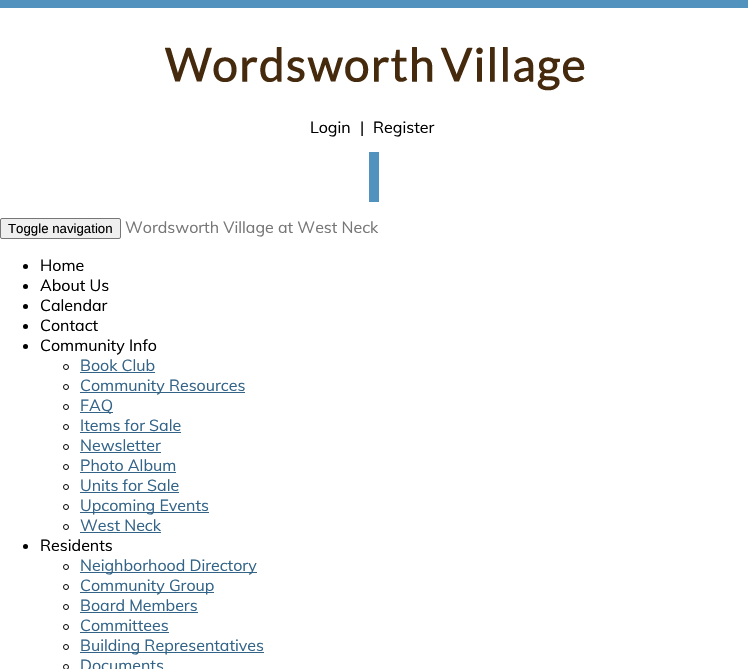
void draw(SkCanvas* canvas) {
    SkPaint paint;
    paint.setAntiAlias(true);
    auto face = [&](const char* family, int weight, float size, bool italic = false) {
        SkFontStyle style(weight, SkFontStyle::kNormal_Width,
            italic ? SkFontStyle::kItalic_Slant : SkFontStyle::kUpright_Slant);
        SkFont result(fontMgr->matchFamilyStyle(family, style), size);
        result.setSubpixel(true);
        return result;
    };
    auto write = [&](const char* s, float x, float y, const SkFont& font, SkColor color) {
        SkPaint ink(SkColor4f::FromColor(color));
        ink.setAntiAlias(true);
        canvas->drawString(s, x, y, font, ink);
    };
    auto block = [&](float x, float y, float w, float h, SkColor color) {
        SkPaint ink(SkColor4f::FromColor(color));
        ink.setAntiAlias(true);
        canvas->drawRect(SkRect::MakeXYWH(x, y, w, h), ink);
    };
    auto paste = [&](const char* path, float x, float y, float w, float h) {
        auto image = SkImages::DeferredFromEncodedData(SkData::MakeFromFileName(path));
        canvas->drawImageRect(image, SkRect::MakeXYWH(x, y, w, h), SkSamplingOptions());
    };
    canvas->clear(SK_ColorWHITE);
    block(0, 0, 748, 8, SkColorSetRGB(82, 146, 191));
    paste("pic1.png", 165, 47, 420, 44);
    auto kFont1 = face("Muli", 400, 16);
    write("Login", 310, 133, kFont1, SK_ColorBLACK);
    write("|", 360, 133, kFont1, SK_ColorBLACK);
    write("Register", 373, 133, kFont1, SK_ColorBLACK);
    block(369, 152, 10, 50, SkColorSetRGB(82, 146, 191));
    paint.setColor(SkColorSetRGB(239, 239, 239));
    canvas->drawRoundRect(SkRect::MakeXYWH(0.5f, 218.5f, 120, 20), 1.5f, 1.5f, paint);
    paint.setStyle(SkPaint::kStroke_Style);
    paint.setStrokeWidth(1);
    paint.setColor(SkColorSetRGB(118, 118, 118));
    canvas->drawRoundRect(SkRect::MakeXYWH(0.5f, 218.5f, 120, 20), 1.5f, 1.5f, paint);
    auto kFont2 = face("Liberation Sans", 400, 13.25f);
    write("Toggle navigation", 8, 233, kFont2, SK_ColorBLACK);
    write("Wordsworth Village at West Neck", 125, 233, kFont1, SkColorSetRGB(119, 119, 119));
    paint.setStyle(SkPaint::kFill_Style);
    paint.setColor(SK_ColorBLACK);
    canvas->drawCircle(25.5f, 266.5f, 2.5f, paint);
    write("Home", 40, 271, kFont1, SK_ColorBLACK);
    canvas->drawCircle(25.5f, 286.5f, 2.5f, paint);
    write("About Us", 40, 291, kFont1, SK_ColorBLACK);
    canvas->drawCircle(25.5f, 306.5f, 2.5f, paint);
    write("Calendar", 40, 311, kFont1, SK_ColorBLACK);
    canvas->drawCircle(25.5f, 326.5f, 2.5f, paint);
    write("Contact", 40, 331, kFont1, SK_ColorBLACK);
    canvas->drawCircle(25.5f, 346.5f, 2.5f, paint);
    write("Community Info", 40, 351, kFont1, SK_ColorBLACK);
    paint.setStyle(SkPaint::kStroke_Style);
    canvas->drawCircle(66, 367, 2.5f, paint);
    write("Book Club", 80, 371, kFont1, SkColorSetRGB(51, 100, 136));
    block(80, 372, 75, 1, SkColorSetRGB(51, 100, 136));
    canvas->drawCircle(66, 387, 2.5f, paint);
    block(80, 392, 165, 1, SkColorSetRGB(51, 100, 136));
    write("Community Resources", 80, 391, kFont1, SkColorSetRGB(51, 100, 136));
    canvas->drawCircle(66, 407, 2.5f, paint);
    block(80, 412, 33, 1, SkColorSetRGB(51, 100, 136));
    write("FAQ", 80, 411, kFont1, SkColorSetRGB(51, 100, 136));
    canvas->drawCircle(66, 427, 2.5f, paint);
    write("Items for Sale", 80, 431, kFont1, SkColorSetRGB(51, 100, 136));
    block(80, 432, 101, 1, SkColorSetRGB(51, 100, 136));
    canvas->drawCircle(66, 447, 2.5f, paint);
    write("Newsletter", 80, 451, kFont1, SkColorSetRGB(51, 100, 136));
    block(80, 452, 81, 1, SkColorSetRGB(51, 100, 136));
    canvas->drawCircle(66, 467, 2.5f, paint);
    write("Photo Album", 80, 471, kFont1, SkColorSetRGB(51, 100, 136));
    block(80, 472, 96, 1, SkColorSetRGB(51, 100, 136));
    canvas->drawCircle(66, 487, 2.5f, paint);
    write("Units for Sale", 80, 491, kFont1, SkColorSetRGB(51, 100, 136));
    block(80, 492, 99, 1, SkColorSetRGB(51, 100, 136));
    canvas->drawCircle(66, 507, 2.5f, paint);
    block(80, 512, 129, 1, SkColorSetRGB(51, 100, 136));
    write("Upcoming Events", 80, 511, kFont1, SkColorSetRGB(51, 100, 136));
    canvas->drawCircle(66, 527, 2.5f, paint);
    write("West Neck", 80, 531, kFont1, SkColorSetRGB(51, 100, 136));
    block(80, 532, 81, 1, SkColorSetRGB(51, 100, 136));
    paint.setStyle(SkPaint::kFill_Style);
    canvas->drawCircle(25.5f, 546.5f, 2.5f, paint);
    write("Residents", 40, 551, kFont1, SK_ColorBLACK);
    paint.setStyle(SkPaint::kStroke_Style);
    canvas->drawCircle(66, 567, 2.5f, paint);
    block(80, 572, 177, 1, SkColorSetRGB(51, 100, 136));
    write("Neighborhood Directory", 80, 571, kFont1, SkColorSetRGB(51, 100, 136));
    canvas->drawCircle(66, 587, 2.5f, paint);
    block(80, 592, 134, 1, SkColorSetRGB(51, 100, 136));
    write("Community Group", 80, 591, kFont1, SkColorSetRGB(51, 100, 136));
    canvas->drawCircle(66, 607, 2.5f, paint);
    write("Board Members", 80, 611, kFont1, SkColorSetRGB(51, 100, 136));
    block(80, 612, 118, 1, SkColorSetRGB(51, 100, 136));
    canvas->drawCircle(66, 627, 2.5f, paint);
    write("Committees", 80, 631, kFont1, SkColorSetRGB(51, 100, 136));
    block(80, 632, 89, 1, SkColorSetRGB(51, 100, 136));
    canvas->drawCircle(66, 647, 2.5f, paint);
    block(80, 652, 184, 1, SkColorSetRGB(51, 100, 136));
    write("Building Representatives", 80, 651, kFont1, SkColorSetRGB(51, 100, 136));
    canvas->drawCircle(66, 667, 2.5f, paint);
    write("Documents", 80, 671, kFont1, SkColorSetRGB(51, 100, 136));
}
